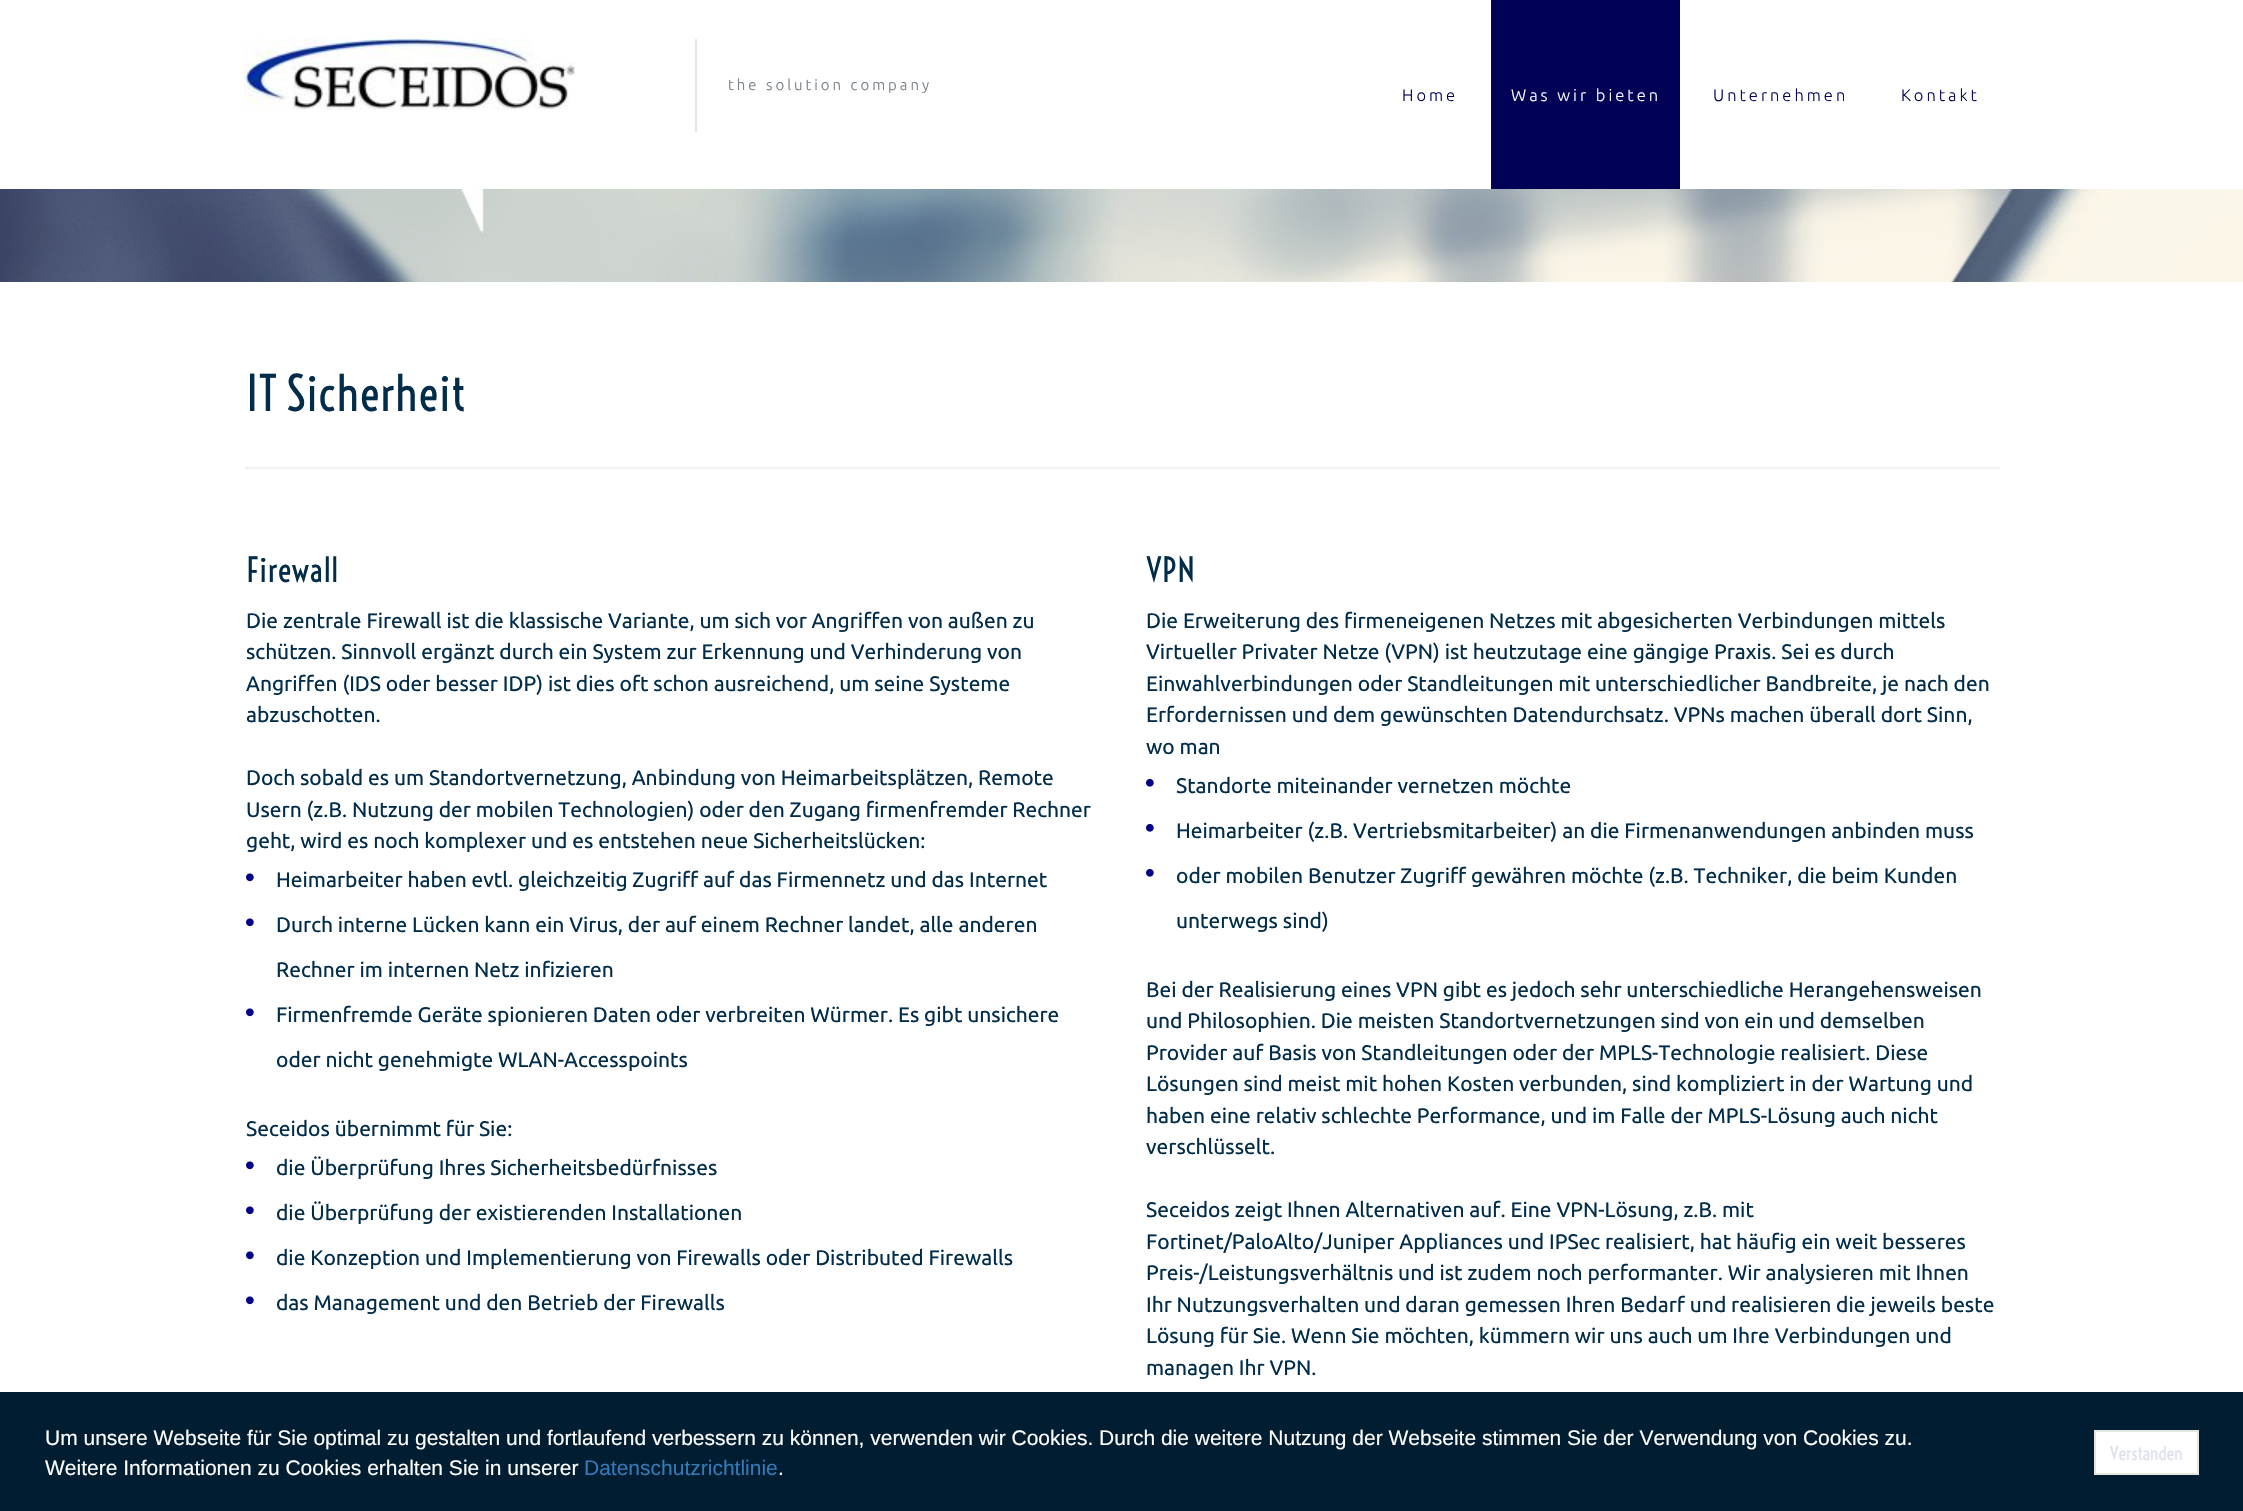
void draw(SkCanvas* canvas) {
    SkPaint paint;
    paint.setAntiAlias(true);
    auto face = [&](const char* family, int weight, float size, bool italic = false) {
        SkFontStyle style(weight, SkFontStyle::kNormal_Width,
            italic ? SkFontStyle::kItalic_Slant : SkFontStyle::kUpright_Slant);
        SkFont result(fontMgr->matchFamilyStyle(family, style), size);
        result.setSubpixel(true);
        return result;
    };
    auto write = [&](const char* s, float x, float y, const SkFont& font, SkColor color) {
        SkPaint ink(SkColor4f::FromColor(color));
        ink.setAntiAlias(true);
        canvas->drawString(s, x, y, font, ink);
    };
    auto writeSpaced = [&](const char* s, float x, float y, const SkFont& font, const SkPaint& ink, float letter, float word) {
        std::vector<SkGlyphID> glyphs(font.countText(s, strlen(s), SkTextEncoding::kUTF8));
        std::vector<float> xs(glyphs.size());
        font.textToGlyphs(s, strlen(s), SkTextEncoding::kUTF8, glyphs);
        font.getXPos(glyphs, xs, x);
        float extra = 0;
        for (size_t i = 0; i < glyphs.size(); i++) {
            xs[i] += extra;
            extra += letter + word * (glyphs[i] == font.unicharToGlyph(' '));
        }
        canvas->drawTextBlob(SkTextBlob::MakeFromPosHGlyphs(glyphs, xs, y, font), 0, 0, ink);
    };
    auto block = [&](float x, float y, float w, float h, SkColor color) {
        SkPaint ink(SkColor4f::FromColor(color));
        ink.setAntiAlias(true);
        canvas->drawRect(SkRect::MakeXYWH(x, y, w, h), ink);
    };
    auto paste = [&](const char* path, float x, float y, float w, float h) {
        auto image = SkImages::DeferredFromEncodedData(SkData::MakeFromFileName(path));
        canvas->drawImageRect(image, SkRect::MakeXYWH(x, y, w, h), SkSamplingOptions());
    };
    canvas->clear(SK_ColorWHITE);
    paste("pic1.png", 244, 39, 331, 71);
    block(695, 39, 2, 93, SkColorSetRGB(230, 230, 224));
    auto kFont1 = face("Ubuntu", 300, 15);
    paint.setColor(SkColorSetRGB(116, 126, 133));
    writeSpaced("the solution company", 728, 90, kFont1, paint, 3, 0);
    auto kFont2 = face("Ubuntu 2", 300, 16.5f);
    paint.setColor(SkColorSetRGB(1, 1, 85));
    writeSpaced("Home", 1402, 101, kFont2, paint, 3, 0);
    block(1491, 0, 189, 189, SkColorSetRGB(1, 1, 85));
    paint.setColor(SK_ColorWHITE);
    writeSpaced("Was wir bieten", 1511, 101, kFont2, paint, 3, 0);
    paint.setColor(SkColorSetRGB(1, 1, 85));
    writeSpaced("Unternehmen", 1713, 101, kFont2, paint, 3, 0);
    writeSpaced("Kontakt", 1901, 101, kFont2, paint, 3, 0);
    paste("pic2.png", 0, 189, 2243, 93);
    auto kFont3 = face("Voltaire", 400, 48);
    write("IT Sicherheit", 246, 411, kFont3, SkColorSetRGB(1, 45, 75));
    block(245, 467, 1755, 2, SkColorSetRGB(241, 241, 238));
    auto kFont4 = face("Voltaire", 400, 33);
    write("Firewall", 246, 582, kFont4, SkColorSetRGB(1, 45, 75));
    auto kFont5 = face("Ubuntu", 400, 21);
    write("Die zentrale Firewall ist die klassische Variante, um sich vor Angriffen von außen zu", 246, 628, kFont5, SkColorSetRGB(1, 45, 75));
    write("schützen. Sinnvoll ergänzt durch ein System zur Erkennung und Verhinderung von", 246, 659, kFont5, SkColorSetRGB(1, 45, 75));
    write("Angriffen (IDS oder besser IDP) ist dies oft schon ausreichend, um seine Systeme", 246, 691, kFont5, SkColorSetRGB(1, 45, 75));
    write("abzuschotten.", 246, 722, kFont5, SkColorSetRGB(1, 45, 75));
    write("Doch sobald es um Standortvernetzung, Anbindung von Heimarbeitsplätzen, Remote", 246, 785, kFont5, SkColorSetRGB(1, 45, 75));
    write("Usern (z.B. Nutzung der mobilen Technologien) oder den Zugang firmenfremder Rechner", 246, 817, kFont5, SkColorSetRGB(1, 45, 75));
    write("geht, wird es noch komplexer und es entstehen neue Sicherheitslücken:", 246, 848, kFont5, SkColorSetRGB(1, 45, 75));
    paste("pic3.png", 246, 873, 8, 9);
    write("Heimarbeiter haben evtl. gleichzeitig Zugriff auf das Firmennetz und das Internet", 276, 887, kFont5, SkColorSetRGB(1, 45, 75));
    paste("pic3.png", 246, 918, 8, 9);
    write("Durch interne Lücken kann ein Virus, der auf einem Rechner landet, alle anderen", 276, 932, kFont5, SkColorSetRGB(1, 45, 75));
    write("Rechner im internen Netz infizieren", 276, 977, kFont5, SkColorSetRGB(1, 45, 75));
    paste("pic3.png", 246, 1008, 8, 9);
    write("Firmenfremde Geräte spionieren Daten oder verbreiten Würmer. Es gibt unsichere", 276, 1022, kFont5, SkColorSetRGB(1, 45, 75));
    write("oder nicht genehmigte WLAN-Accesspoints", 276, 1067, kFont5, SkColorSetRGB(1, 45, 75));
    write("Seceidos übernimmt für Sie:", 246, 1136, kFont5, SkColorSetRGB(1, 45, 75));
    paste("pic3.png", 246, 1161, 8, 9);
    write("die Überprüfung Ihres Sicherheitsbedürfnisses", 276, 1175, kFont5, SkColorSetRGB(1, 45, 75));
    paste("pic3.png", 246, 1206, 8, 9);
    write("die Überprüfung der existierenden Installationen", 276, 1220, kFont5, SkColorSetRGB(1, 45, 75));
    paste("pic3.png", 246, 1251, 8, 9);
    write("die Konzeption und Implementierung von Firewalls oder Distributed Firewalls", 276, 1265, kFont5, SkColorSetRGB(1, 45, 75));
    paste("pic3.png", 246, 1296, 8, 9);
    write("das Management und den Betrieb der Firewalls", 276, 1310, kFont5, SkColorSetRGB(1, 45, 75));
    write("VPN", 1146, 582, kFont4, SkColorSetRGB(1, 45, 75));
    write("Die Erweiterung des firmeneigenen Netzes mit abgesicherten Verbindungen mittels", 1146, 628, kFont5, SkColorSetRGB(1, 45, 75));
    write("Virtueller Privater Netze (VPN) ist heutzutage eine gängige Praxis. Sei es durch", 1146, 659, kFont5, SkColorSetRGB(1, 45, 75));
    write("Einwahlverbindungen oder Standleitungen mit unterschiedlicher Bandbreite, je nach den", 1146, 691, kFont5, SkColorSetRGB(1, 45, 75));
    write("Erfordernissen und dem gewünschten Datendurchsatz. VPNs machen überall dort Sinn,", 1146, 722, kFont5, SkColorSetRGB(1, 45, 75));
    write("wo man", 1146, 754, kFont5, SkColorSetRGB(1, 45, 75));
    paste("pic4.png", 1146, 778, 8, 9);
    write("Standorte miteinander vernetzen möchte", 1176, 793, kFont5, SkColorSetRGB(1, 45, 75));
    paste("pic4.png", 1146, 823, 8, 9);
    write("Heimarbeiter (z.B. Vertriebsmitarbeiter) an die Firmenanwendungen anbinden muss", 1176, 838, kFont5, SkColorSetRGB(1, 45, 75));
    paste("pic4.png", 1146, 868, 8, 9);
    write("oder mobilen Benutzer Zugriff gewähren möchte (z.B. Techniker, die beim Kunden", 1176, 883, kFont5, SkColorSetRGB(1, 45, 75));
    write("unterwegs sind)", 1176, 928, kFont5, SkColorSetRGB(1, 45, 75));
    write("Bei der Realisierung eines VPN gibt es jedoch sehr unterschiedliche Herangehensweisen", 1146, 997, kFont5, SkColorSetRGB(1, 45, 75));
    write("und Philosophien. Die meisten Standortvernetzungen sind von ein und demselben", 1146, 1028, kFont5, SkColorSetRGB(1, 45, 75));
    write("Provider auf Basis von Standleitungen oder der MPLS-Technologie realisiert. Diese", 1146, 1060, kFont5, SkColorSetRGB(1, 45, 75));
    write("Lösungen sind meist mit hohen Kosten verbunden, sind kompliziert in der Wartung und", 1146, 1091, kFont5, SkColorSetRGB(1, 45, 75));
    write("haben eine relativ schlechte Performance, und im Falle der MPLS-Lösung auch nicht", 1146, 1123, kFont5, SkColorSetRGB(1, 45, 75));
    write("verschlüsselt.", 1146, 1154, kFont5, SkColorSetRGB(1, 45, 75));
    write("Seceidos zeigt Ihnen Alternativen auf. Eine VPN-Lösung, z.B. mit", 1146, 1217, kFont5, SkColorSetRGB(1, 45, 75));
    write("Fortinet/PaloAlto/Juniper Appliances und IPSec realisiert, hat häufig ein weit besseres", 1146, 1249, kFont5, SkColorSetRGB(1, 45, 75));
    write("Preis-/Leistungsverhältnis und ist zudem noch performanter. Wir analysieren mit Ihnen", 1146, 1280, kFont5, SkColorSetRGB(1, 45, 75));
    write("Ihr Nutzungsverhalten und daran gemessen Ihren Bedarf und realisieren die jeweils beste", 1146, 1312, kFont5, SkColorSetRGB(1, 45, 75));
    write("Lösung für Sie. Wenn Sie möchten, kümmern wir uns auch um Ihre Verbindungen und", 1146, 1343, kFont5, SkColorSetRGB(1, 45, 75));
    write("managen Ihr VPN.", 1146, 1375, kFont5, SkColorSetRGB(1, 45, 75));
    block(0, 1392, 2243, 119, SkColorSetRGB(0, 29, 49));
    auto kFont6 = face("Liberation Sans", 400, 21);
    write("Um unsere Webseite für Sie optimal zu gestalten und fortlaufend verbessern zu können, verwenden wir Cookies. Durch die weitere Nutzung der Webseite stimmen Sie der Verwendung von Cookies zu.", 45, 1445, kFont6, SK_ColorWHITE);
    write("Weitere Informationen zu Cookies erhalten Sie in unserer", 45, 1475, kFont6, SK_ColorWHITE);
    write("Datenschutzrichtlinie", 584, 1475, kFont6, SkColorSetRGB(51, 122, 183));
    write(".", 778, 1475, kFont6, SK_ColorWHITE);
    paint.setColor(SK_ColorWHITE);
    canvas->drawRect(SkRect::MakeXYWH(2095, 1431, 103, 43), paint);
    paint.setStyle(SkPaint::kStroke_Style);
    paint.setStrokeWidth(2);
    paint.setColor(SkColorSetRGB(230, 230, 224));
    canvas->drawRect(SkRect::MakeXYWH(2095, 1431, 103, 43), paint);
    auto kFont7 = face("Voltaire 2", 400, 18);
    write("Verstanden", 2110, 1460, kFont7, SkColorSetRGB(223, 225, 237));
}
